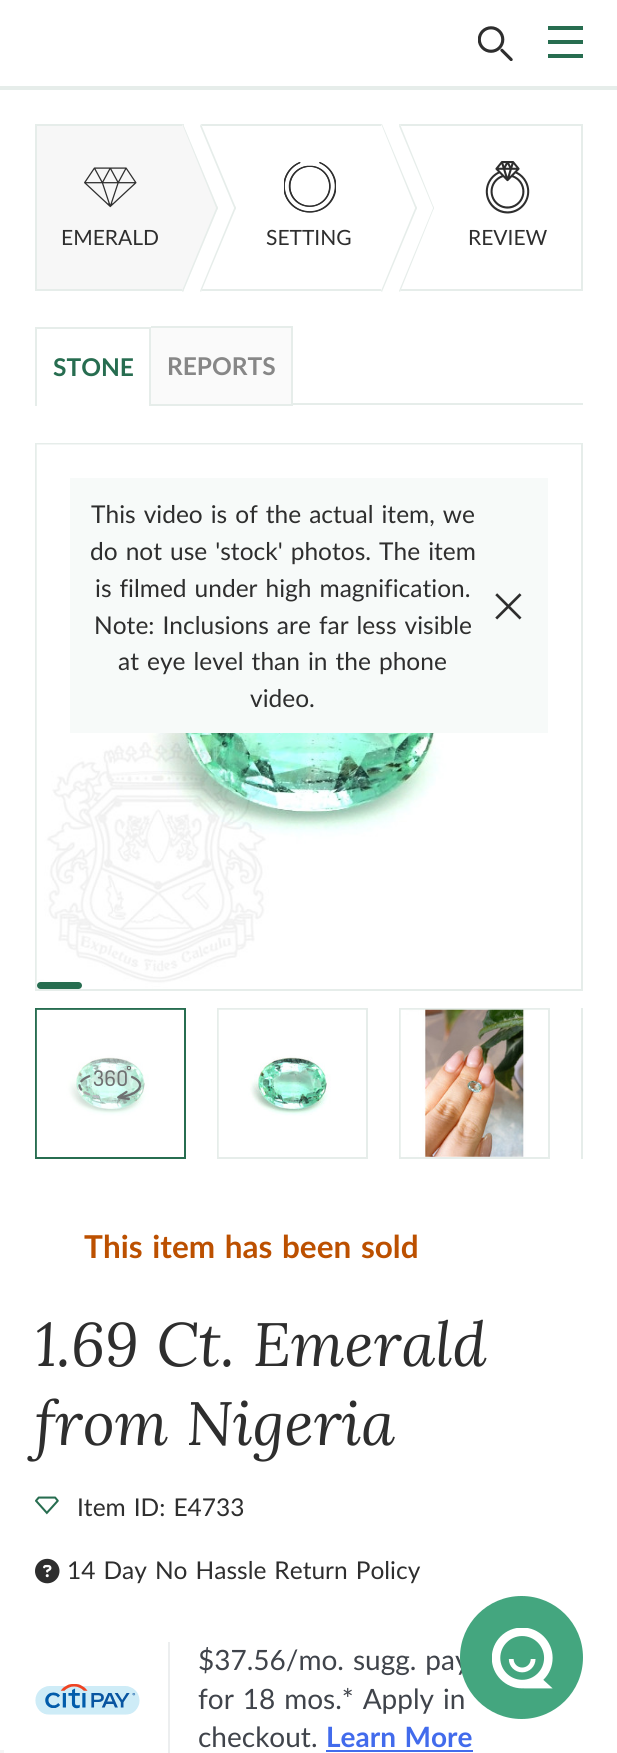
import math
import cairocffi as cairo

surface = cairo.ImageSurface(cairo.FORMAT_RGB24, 617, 1753)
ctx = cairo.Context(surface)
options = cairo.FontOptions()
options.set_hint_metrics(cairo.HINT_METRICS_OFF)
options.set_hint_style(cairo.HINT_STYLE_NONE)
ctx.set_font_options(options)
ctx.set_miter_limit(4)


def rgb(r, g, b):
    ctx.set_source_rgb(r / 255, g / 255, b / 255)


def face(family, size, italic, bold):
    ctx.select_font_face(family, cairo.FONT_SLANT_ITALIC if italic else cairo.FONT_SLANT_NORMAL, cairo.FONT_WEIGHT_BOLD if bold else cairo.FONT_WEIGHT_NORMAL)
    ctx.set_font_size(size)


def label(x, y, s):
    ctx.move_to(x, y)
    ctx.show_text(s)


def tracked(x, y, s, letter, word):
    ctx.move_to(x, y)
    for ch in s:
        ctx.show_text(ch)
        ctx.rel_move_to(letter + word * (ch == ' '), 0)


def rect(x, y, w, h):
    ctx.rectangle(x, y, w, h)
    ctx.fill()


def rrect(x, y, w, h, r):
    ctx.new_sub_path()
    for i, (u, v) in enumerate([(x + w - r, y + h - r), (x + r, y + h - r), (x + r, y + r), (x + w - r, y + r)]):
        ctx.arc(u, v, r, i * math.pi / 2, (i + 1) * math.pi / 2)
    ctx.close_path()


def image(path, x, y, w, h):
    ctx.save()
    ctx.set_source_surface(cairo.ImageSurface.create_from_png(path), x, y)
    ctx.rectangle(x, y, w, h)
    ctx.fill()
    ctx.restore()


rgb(255, 255, 255)
ctx.paint()
image('image0.png', 478, 26, 35, 35)
rgb(39, 109, 80)
rect(548, 26, 35, 4)
rect(548, 40, 35, 4)
rect(548, 54, 35, 4)
rgb(230, 237, 234)
rect(0, 86, 617, 4)
rgb(247, 247, 247)
rect(37, 126, 147, 163)
rgb(230, 237, 234)
rect(35, 124, 149, 2)
rect(35, 289, 149, 2)
rect(35, 124, 2, 167)
image('image1.png', 84, 167, 53, 41)
rect(201, 124, 181, 2)
rect(201, 289, 181, 2)
rgb(255, 255, 255)
ctx.new_path()
ctx.move_to(201, 124)
ctx.line_to(236, 208)
ctx.line_to(201, 292)
ctx.line_to(166, 208)
ctx.close_path()
ctx.fill()
rgb(230, 237, 234)
ctx.new_path()
ctx.move_to(201, 124)
ctx.line_to(236, 208)
ctx.line_to(235, 210)
ctx.line_to(200, 126)
ctx.close_path()
ctx.fill()
ctx.new_path()
ctx.move_to(235, 206)
ctx.line_to(236, 208)
ctx.line_to(201, 292)
ctx.line_to(200, 291)
ctx.close_path()
ctx.fill()
rgb(247, 247, 247)
ctx.new_path()
ctx.move_to(183, 124)
ctx.line_to(218, 208)
ctx.line_to(183, 292)
ctx.line_to(148, 208)
ctx.close_path()
ctx.fill()
face('Lato', 21, 0, 0)
rgb(46, 46, 46)
label(61, 245, 'EMERALD')
rgb(230, 237, 234)
ctx.new_path()
ctx.move_to(183, 124)
ctx.line_to(218, 208)
ctx.line_to(217, 210)
ctx.line_to(183, 126)
ctx.close_path()
ctx.fill()
ctx.new_path()
ctx.move_to(217, 206)
ctx.line_to(218, 208)
ctx.line_to(183, 292)
ctx.line_to(182, 291)
ctx.close_path()
ctx.fill()
image('image2.png', 284, 162, 52, 51)
rect(399, 124, 184, 2)
rect(581, 124, 2, 167)
rect(399, 289, 184, 2)
rgb(255, 255, 255)
ctx.new_path()
ctx.move_to(400, 124)
ctx.line_to(434, 208)
ctx.line_to(400, 292)
ctx.line_to(365, 208)
ctx.close_path()
ctx.fill()
rgb(230, 237, 234)
ctx.new_path()
ctx.move_to(400, 124)
ctx.line_to(434, 208)
ctx.line_to(434, 210)
ctx.line_to(399, 126)
ctx.close_path()
ctx.fill()
ctx.new_path()
ctx.move_to(434, 206)
ctx.line_to(434, 208)
ctx.line_to(400, 292)
ctx.line_to(399, 291)
ctx.close_path()
ctx.fill()
rgb(255, 255, 255)
ctx.new_path()
ctx.move_to(382, 124)
ctx.line_to(417, 208)
ctx.line_to(382, 292)
ctx.line_to(347, 208)
ctx.close_path()
ctx.fill()
rgb(46, 46, 46)
label(266, 245, 'SETTING')
rgb(230, 237, 234)
ctx.new_path()
ctx.move_to(382, 124)
ctx.line_to(417, 208)
ctx.line_to(416, 210)
ctx.line_to(382, 126)
ctx.close_path()
ctx.fill()
ctx.new_path()
ctx.move_to(416, 206)
ctx.line_to(417, 208)
ctx.line_to(382, 292)
ctx.line_to(381, 291)
ctx.close_path()
ctx.fill()
image('image3.png', 485, 161, 45, 53)
rgb(46, 46, 46)
label(468, 245, 'REVIEW')
rgb(230, 237, 234)
rect(35, 327, 116, 2)
rect(149, 327, 2, 79)
rect(35, 327, 2, 79)
face('Lato', 24.5, 0, 1)
rgb(39, 109, 80)
label(53, 376, 'STONE')
rgb(250, 250, 250)
rect(151, 328, 140, 76)
rgb(230, 237, 234)
rect(151, 326, 141, 2)
rect(291, 326, 2, 80)
rect(151, 404, 141, 2)
rgb(135, 135, 135)
label(167, 375, 'REPORTS')
rgb(230, 237, 234)
rect(293, 403, 290, 2)
ctx.rectangle(36, 444, 546, 546)
ctx.stroke()
image('image4.png', 36, 444, 545, 545)
rgb(39, 109, 80)
rrect(37, 982, 45, 7, 3.5)
ctx.fill()
rgb(247, 250, 249)
rect(70, 478, 478, 255)
face('Lato', 24.5, 0, 0)
rgb(46, 46, 46)
tracked(91, 523, 'This video is of the actual item, we', 0, 1.75)
tracked(90, 560, 'do not use \'stock\' photos. The item', 0, 1.75)
tracked(95, 597, 'is filmed under high magnification.', 0, 1.75)
tracked(94, 634, 'Note: Inclusions are far less visible', 0, 1.75)
tracked(118, 670, 'at eye level than in the phone', 0, 1.75)
label(250, 707, 'video.')
image('image5.png', 495, 593, 27, 27)
ctx.rectangle(36, 1009, 149, 149)
rgb(39, 109, 80)
ctx.stroke()
image('image6.png', 36, 1009, 148, 148)
image('image7.png', 78, 1066, 64, 34)
ctx.rectangle(218, 1009, 149, 149)
rgb(230, 237, 234)
ctx.stroke()
image('image8.png', 218, 1009, 148, 148)
ctx.rectangle(400, 1009, 149, 149)
ctx.stroke()
image('image9.png', 400, 1009, 148, 148)
ctx.save()
ctx.rectangle(35, 1008, 548, 177)
ctx.clip()
ctx.rectangle(582, 1009, 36, 149)
ctx.stroke()
ctx.restore()
face('Lato', 31.5, 0, 1)
rgb(188, 80, 0)
tracked(84, 1258, 'This item has been sold', 0, 2)
face('Lora', 61.25, 1, 0)
rgb(46, 46, 46)
tracked(35, 1366, '1.69 Ct. Emerald', 0, 1.75)
tracked(35, 1445, 'from Nigeria', 0, 1.75)
image('image10.png', 35, 1496, 24, 19)
face('Lato', 24.5, 0, 0)
tracked(77, 1516, 'Item ID: E4733', 0, 1.75)
image('image11.png', 35, 1558, 25, 26)
tracked(67, 1579, '14 Day No Hassle Return Policy', 0, 1.75)
image('image12.png', 35, 1684, 105, 31)
rgb(236, 238, 239)
rect(168, 1642, 2, 111)
face('Lato', 28, 0, 0)
rgb(64, 68, 75)
tracked(198, 1670, '$37.56/mo. sugg. pay', 0, 1.75)
tracked(198, 1709, 'for 18 mos.* Apply in', 0, 1.75)
label(198, 1747, 'checkout.')
face('Lato', 28, 0, 1)
rgb(66, 107, 236)
tracked(326, 1747, 'Learn More', 0, 1.75)
rect(326, 1750, 147, 2)
rgb(68, 166, 127)
ctx.new_path()
ctx.arc(521.5, 1657.5, 61.5, 0, 2 * math.pi)
ctx.fill()
image('image13.png', 492, 1628, 61, 61)
rgb(245, 245, 245)
rect(0, 1750, 4, 3)
surface.write_to_png('render.png')
